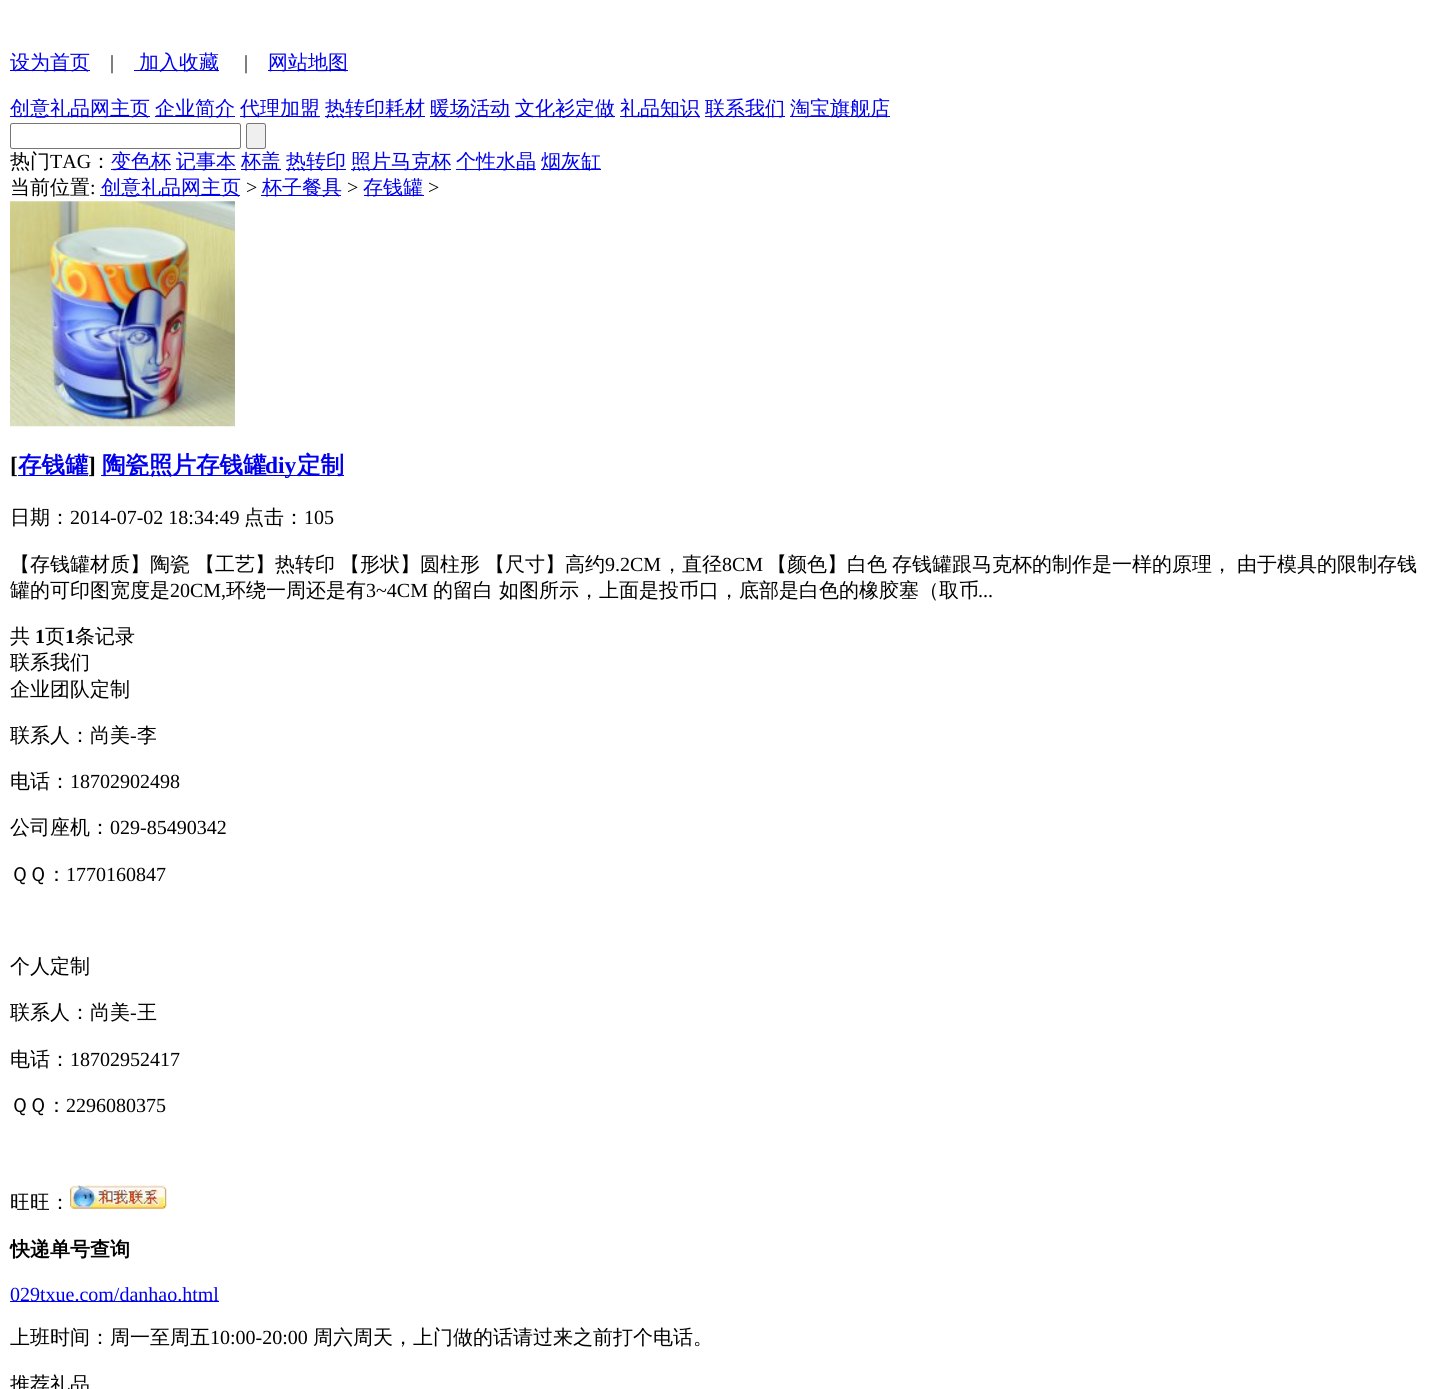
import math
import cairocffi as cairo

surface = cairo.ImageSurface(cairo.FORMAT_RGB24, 1438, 1389)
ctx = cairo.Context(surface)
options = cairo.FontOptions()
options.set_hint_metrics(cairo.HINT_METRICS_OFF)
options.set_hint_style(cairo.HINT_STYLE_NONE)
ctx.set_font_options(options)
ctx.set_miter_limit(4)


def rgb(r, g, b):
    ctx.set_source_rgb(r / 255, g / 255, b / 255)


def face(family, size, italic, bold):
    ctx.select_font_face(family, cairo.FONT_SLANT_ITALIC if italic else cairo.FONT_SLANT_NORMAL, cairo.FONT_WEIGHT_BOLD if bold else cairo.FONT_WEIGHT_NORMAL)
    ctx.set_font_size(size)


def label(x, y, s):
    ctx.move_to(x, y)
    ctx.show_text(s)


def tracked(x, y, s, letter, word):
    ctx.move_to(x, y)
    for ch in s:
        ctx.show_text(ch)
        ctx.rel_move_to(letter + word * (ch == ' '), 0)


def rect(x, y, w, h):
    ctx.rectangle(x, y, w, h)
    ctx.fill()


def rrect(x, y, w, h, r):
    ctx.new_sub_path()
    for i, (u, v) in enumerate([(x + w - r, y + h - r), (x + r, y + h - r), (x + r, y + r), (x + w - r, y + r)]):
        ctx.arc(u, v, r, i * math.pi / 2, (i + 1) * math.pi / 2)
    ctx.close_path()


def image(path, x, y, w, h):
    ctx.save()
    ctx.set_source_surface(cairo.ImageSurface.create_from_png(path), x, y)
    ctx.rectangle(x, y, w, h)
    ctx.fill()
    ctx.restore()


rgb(255, 255, 255)
ctx.paint()
rgb(0, 0, 238)
rect(10, 70, 80, 1)
face('WenQuanYi Zen Hei Medium', 20, 0, 0)
label(10, 69, '设为首页')
face('Liberation Serif', 20, 0, 0)
rgb(0, 0, 0)
label(110, 69, '|')
rgb(0, 0, 238)
rect(134, 70, 85, 1)
face('WenQuanYi Zen Hei Medium', 20, 0, 0)
label(139, 69, '加入收藏')
face('Liberation Serif', 20, 0, 0)
rgb(0, 0, 0)
label(244, 69, '|')
rgb(0, 0, 238)
rect(268, 70, 80, 1)
face('WenQuanYi Zen Hei Medium', 20, 0, 0)
label(268, 69, '网站地图')
rect(10, 116, 140, 1)
label(10, 115, '创意礼品网主页')
rect(155, 116, 80, 1)
label(155, 115, '企业简介')
rect(240, 116, 80, 1)
label(240, 115, '代理加盟')
rect(325, 116, 100, 1)
label(325, 115, '热转印耗材')
rect(430, 116, 80, 1)
label(430, 115, '暖场活动')
rect(515, 116, 100, 1)
label(515, 115, '文化衫定做')
rect(620, 116, 80, 1)
label(620, 115, '礼品知识')
rect(705, 116, 80, 1)
label(705, 115, '联系我们')
rect(790, 116, 100, 1)
label(790, 115, '淘宝旗舰店')
rrect(10.5, 123.5, 230, 25, 2)
rgb(118, 118, 118)
ctx.set_line_width(1)
ctx.stroke()
rgb(239, 239, 239)
rrect(246.5, 123.5, 19, 25, 2)
ctx.fill_preserve()
rgb(118, 118, 118)
ctx.stroke()
rgb(0, 0, 0)
label(10, 168, '热门')
face('Liberation Serif', 20, 0, 0)
label(50, 168, 'TAG')
face('WenQuanYi Zen Hei Medium', 20, 0, 0)
label(91, 168, '：')
rgb(0, 0, 238)
rect(111, 169, 60, 1)
label(111, 168, '变色杯')
rect(176, 169, 60, 1)
label(176, 168, '记事本')
rect(241, 169, 40, 1)
label(241, 168, '杯盖')
rect(286, 169, 60, 1)
label(286, 168, '热转印')
rect(351, 169, 100, 1)
label(351, 168, '照片马克杯')
rect(456, 169, 80, 1)
label(456, 168, '个性水晶')
rect(541, 169, 60, 1)
label(541, 168, '烟灰缸')
rgb(0, 0, 0)
label(10, 194, '当前位置')
face('Liberation Serif', 20, 0, 0)
label(90, 194, ':')
rgb(0, 0, 238)
rect(100, 195, 140, 1)
face('WenQuanYi Zen Hei Medium', 20, 0, 0)
label(101, 194, '创意礼品网主页')
face('Liberation Serif', 20, 0, 0)
rgb(0, 0, 0)
label(246, 194, '>')
rgb(0, 0, 238)
rect(261, 195, 80, 1)
face('WenQuanYi Zen Hei Medium', 20, 0, 0)
label(262, 194, '杯子餐具')
face('Liberation Serif', 20, 0, 0)
rgb(0, 0, 0)
label(347, 194, '>')
rgb(0, 0, 238)
rect(364, 195, 60, 1)
face('WenQuanYi Zen Hei Medium', 20, 0, 0)
label(363, 194, '存钱罐')
face('Liberation Serif', 20, 0, 0)
rgb(0, 0, 0)
label(428, 194, '>')
image('image0.png', 10, 201, 225, 226)
face('Liberation Serif', 23.5, 0, 1)
label(10, 473, '[')
rgb(0, 0, 238)
rect(18, 475, 70, 1)
face('WenQuanYi Zen Hei', 23.5, 0, 1)
label(18, 473, '存钱罐')
face('Liberation Serif', 23.5, 0, 1)
rgb(0, 0, 0)
label(88, 473, ']')
rgb(0, 0, 238)
rect(101, 475, 243, 1)
face('WenQuanYi Zen Hei', 23.5, 0, 1)
label(102, 473, '陶瓷照片存钱罐')
face('Liberation Serif', 23.5, 0, 1)
label(265, 473, 'diy')
face('WenQuanYi Zen Hei', 23.5, 0, 1)
label(297, 473, '定制')
face('WenQuanYi Zen Hei Medium', 20, 0, 0)
rgb(0, 0, 0)
label(10, 524, '日期：')
face('Liberation Serif', 20, 0, 0)
label(70, 524, '2014-07-02 18:34:49')
face('WenQuanYi Zen Hei Medium', 20, 0, 0)
label(244, 524, '点击：')
face('Liberation Serif', 20, 0, 0)
label(304, 524, '105')
face('WenQuanYi Zen Hei Medium', 20, 0, 0)
tracked(10, 571, '【存钱罐材质】陶瓷 【工艺】热转印 【形状】圆柱形 【尺寸】高约', 0, -1)
face('Liberation Serif', 20, 0, 0)
label(605, 571, '9.2CM')
face('WenQuanYi Zen Hei Medium', 20, 0, 0)
label(662, 571, '，直径')
face('Liberation Serif', 20, 0, 0)
label(722, 571, '8CM')
face('WenQuanYi Zen Hei Medium', 20, 0, 0)
tracked(767, 571, '【颜色】白色 存钱罐跟马克杯的制作是一样的原理， 由于模具的限制存钱', 0, -1)
label(10, 597, '罐的可印图宽度是')
face('Liberation Serif', 20, 0, 0)
label(170, 597, '20CM,')
face('WenQuanYi Zen Hei Medium', 20, 0, 0)
label(226, 597, '环绕一周还是有')
face('Liberation Serif', 20, 0, 0)
label(366, 597, '3~4CM')
face('WenQuanYi Zen Hei Medium', 20, 0, 0)
label(433, 597, '的留白 如图所示，上面是投币口，底部是白色的橡胶塞（取币')
face('Liberation Serif', 20, 0, 0)
label(978, 597, '...')
face('WenQuanYi Zen Hei Medium', 20, 0, 0)
label(10, 643, '共')
face('Liberation Serif', 20, 0, 1)
label(35, 643, '1')
face('WenQuanYi Zen Hei Medium', 20, 0, 0)
label(45, 643, '页')
face('Liberation Serif', 20, 0, 1)
label(65, 643, '1')
face('WenQuanYi Zen Hei Medium', 20, 0, 0)
label(75, 643, '条记录')
label(10, 669, '联系我们')
label(10, 696, '企业团队定制')
label(10, 742, '联系人：尚美')
face('Liberation Serif', 20, 0, 0)
label(130, 742, '-')
face('WenQuanYi Zen Hei Medium', 20, 0, 0)
label(137, 742, '李')
label(10, 788, '电话：')
face('Liberation Serif', 20, 0, 0)
label(70, 788, '18702902498')
face('WenQuanYi Zen Hei Medium', 20, 0, 0)
label(10, 834, '公司座机：')
face('Liberation Serif', 20, 0, 0)
label(110, 834, '029-85490342')
face('WenQuanYi Zen Hei Medium', 20, 0, 0)
label(10, 881, 'ＱＱ：')
face('Liberation Serif', 20, 0, 0)
label(66, 881, '1770160847')
face('WenQuanYi Zen Hei Medium', 20, 0, 0)
label(10, 973, '个人定制')
label(10, 1019, '联系人：尚美')
face('Liberation Serif', 20, 0, 0)
label(130, 1019, '-')
face('WenQuanYi Zen Hei Medium', 20, 0, 0)
label(137, 1019, '王')
label(10, 1066, '电话：')
face('Liberation Serif', 20, 0, 0)
label(70, 1066, '18702952417')
face('WenQuanYi Zen Hei Medium', 20, 0, 0)
label(10, 1112, 'ＱＱ：')
face('Liberation Serif', 20, 0, 0)
label(66, 1112, '2296080375')
face('WenQuanYi Zen Hei Medium', 20, 0, 0)
label(10, 1209, '旺旺：')
image('image1.png', 70, 1185, 97, 24)
face('WenQuanYi Zen Hei', 20, 0, 1)
label(10, 1256, '快递单号查询')
rgb(0, 0, 238)
rect(10, 1301, 209, 1)
face('Liberation Serif', 20, 0, 0)
label(10, 1301, '029txue.com/danhao.html')
face('WenQuanYi Zen Hei Medium', 20, 0, 0)
rgb(0, 0, 0)
label(10, 1344, '上班时间：周一至周五')
face('Liberation Serif', 20, 0, 0)
label(210, 1344, '10:00-20:00')
face('WenQuanYi Zen Hei Medium', 20, 0, 0)
label(313, 1344, '周六周天，上门做的话请过来之前打个电话。')
label(10, 1391, '推荐礼品')
surface.write_to_png('render.png')
